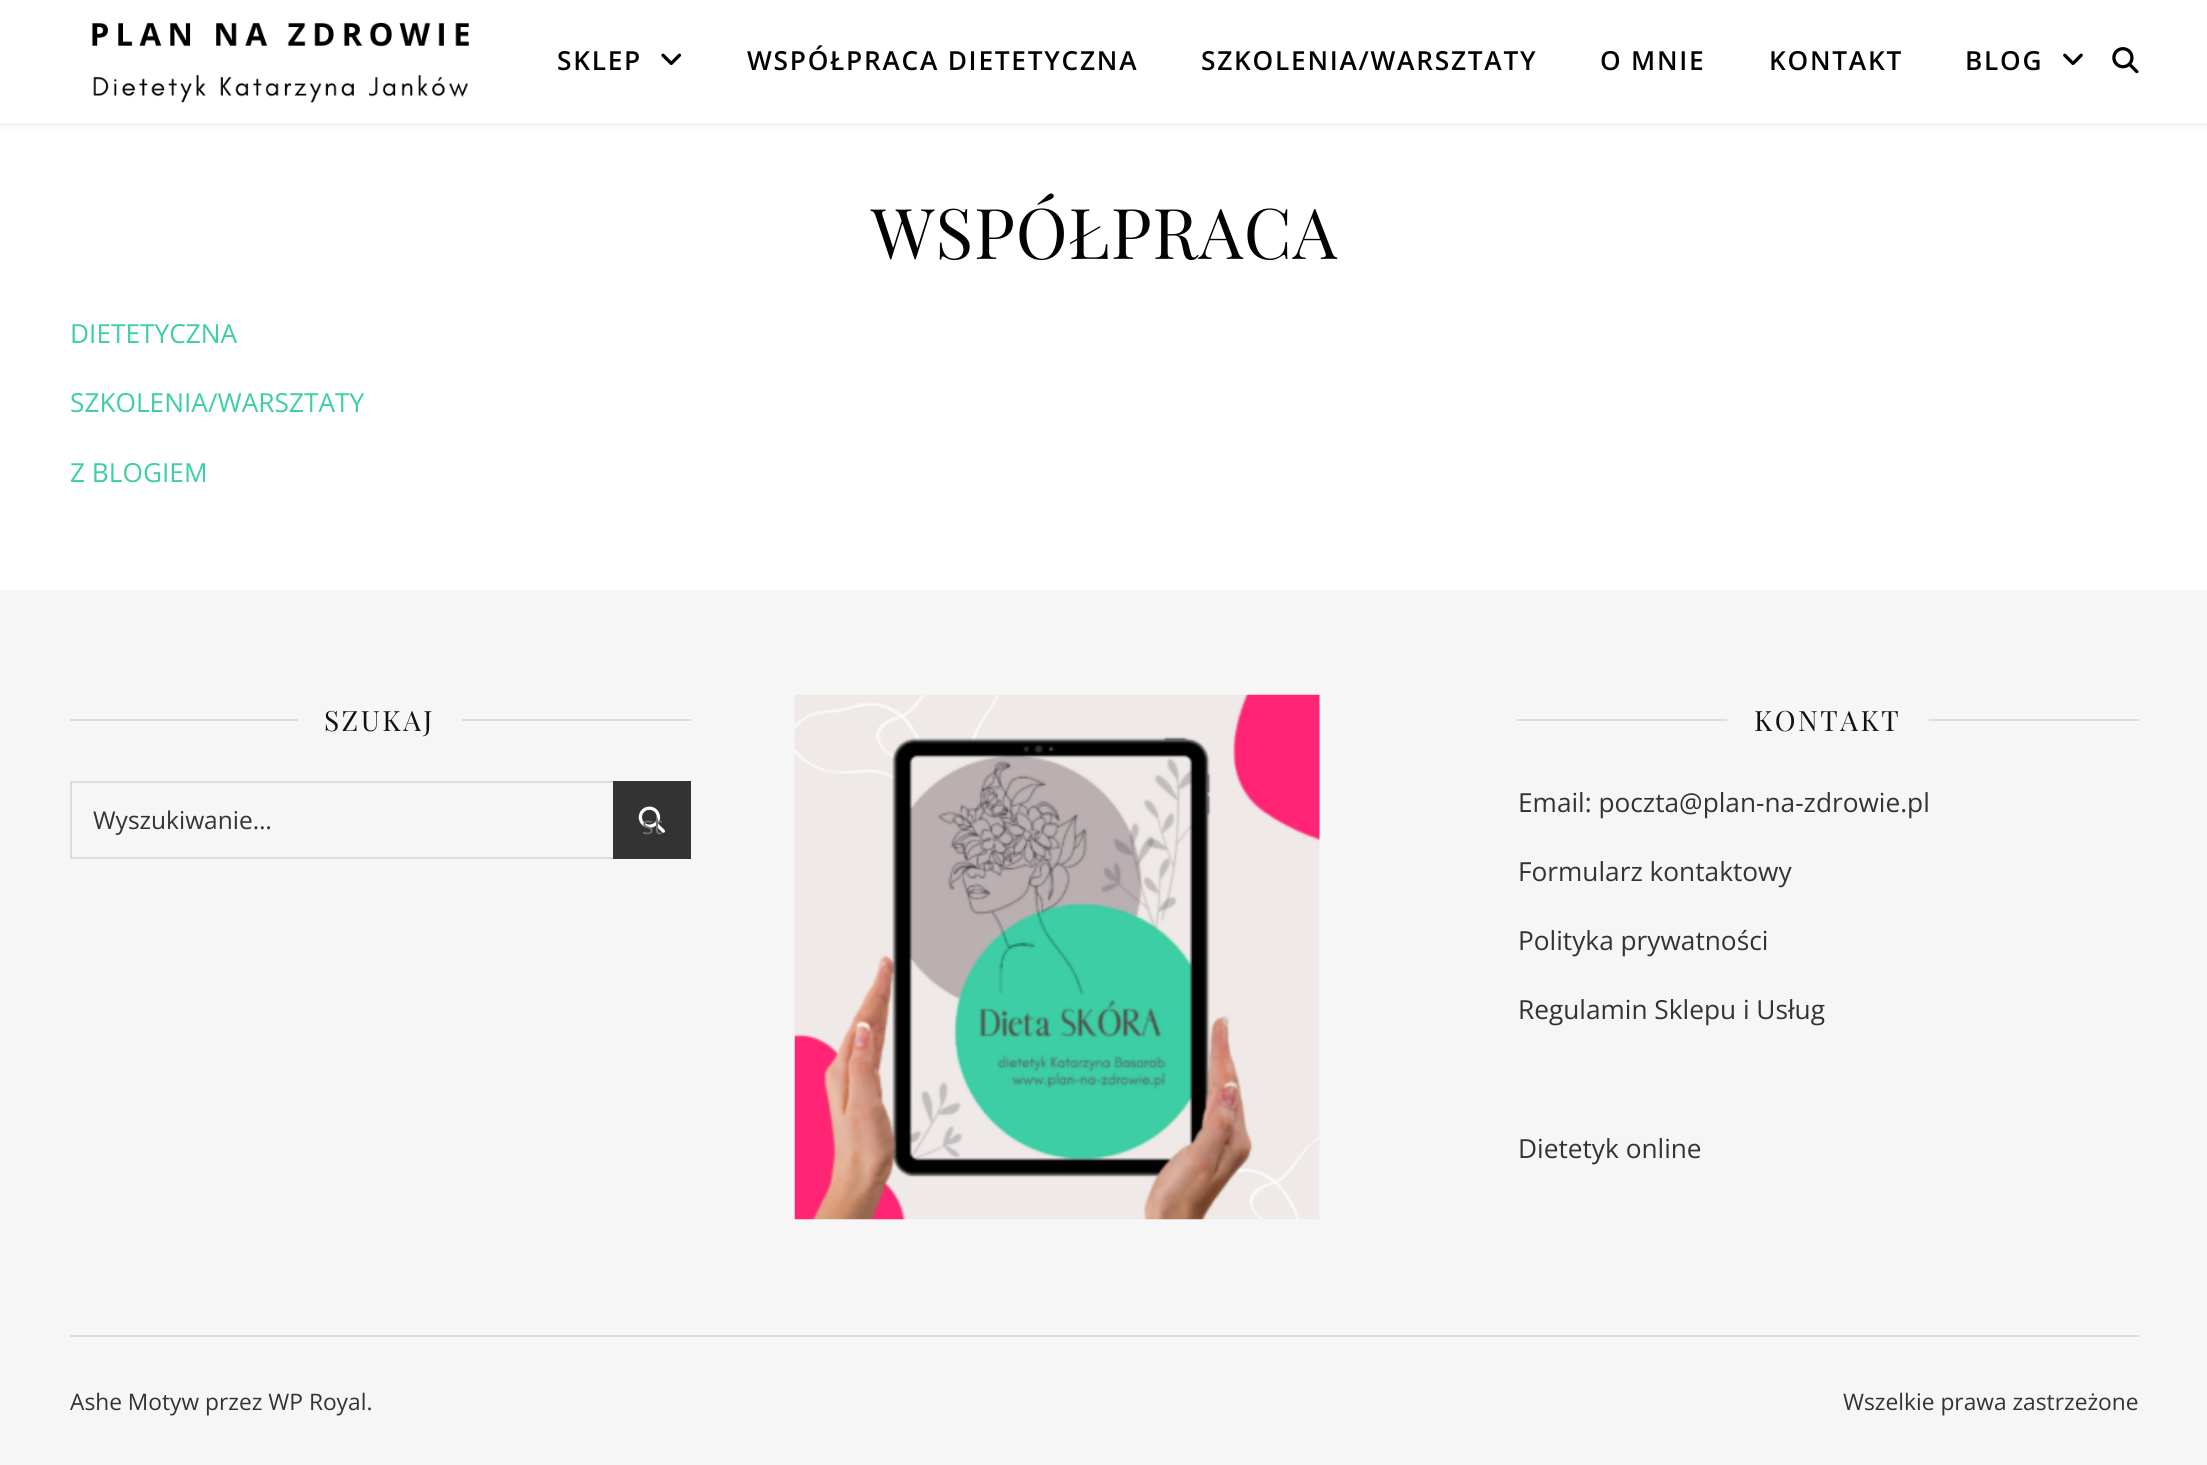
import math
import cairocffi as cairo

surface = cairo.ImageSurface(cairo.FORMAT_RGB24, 2207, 1465)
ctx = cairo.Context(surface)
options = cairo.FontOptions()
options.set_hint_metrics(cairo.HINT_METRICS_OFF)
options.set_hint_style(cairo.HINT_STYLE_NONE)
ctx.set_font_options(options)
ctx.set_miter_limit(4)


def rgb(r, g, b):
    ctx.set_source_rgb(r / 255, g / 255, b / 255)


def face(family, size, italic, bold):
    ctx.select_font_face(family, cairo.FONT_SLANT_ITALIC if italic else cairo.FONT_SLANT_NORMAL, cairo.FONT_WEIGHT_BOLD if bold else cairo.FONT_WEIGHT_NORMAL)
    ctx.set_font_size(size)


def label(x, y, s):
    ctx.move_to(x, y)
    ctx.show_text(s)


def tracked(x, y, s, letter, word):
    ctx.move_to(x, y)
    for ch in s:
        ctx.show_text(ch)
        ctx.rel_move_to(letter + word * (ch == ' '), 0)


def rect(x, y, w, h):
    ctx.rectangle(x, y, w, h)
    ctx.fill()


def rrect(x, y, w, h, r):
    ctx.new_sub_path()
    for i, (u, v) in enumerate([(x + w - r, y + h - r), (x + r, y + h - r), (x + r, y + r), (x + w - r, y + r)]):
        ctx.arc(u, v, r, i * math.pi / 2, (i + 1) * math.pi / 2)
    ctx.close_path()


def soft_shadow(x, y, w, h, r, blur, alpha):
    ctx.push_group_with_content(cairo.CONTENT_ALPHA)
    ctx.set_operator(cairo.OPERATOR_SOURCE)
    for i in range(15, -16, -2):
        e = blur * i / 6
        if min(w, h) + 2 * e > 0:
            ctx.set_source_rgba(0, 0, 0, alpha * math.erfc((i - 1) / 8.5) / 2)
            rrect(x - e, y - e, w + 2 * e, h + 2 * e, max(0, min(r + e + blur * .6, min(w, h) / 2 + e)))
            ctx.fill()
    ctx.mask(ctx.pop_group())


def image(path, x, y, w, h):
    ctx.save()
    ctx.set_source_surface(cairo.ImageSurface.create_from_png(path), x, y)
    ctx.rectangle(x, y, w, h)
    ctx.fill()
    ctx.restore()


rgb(255, 255, 255)
ctx.paint()
rgb(0, 0, 0)
soft_shadow(0, 0, 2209, 124, 0, 4.5, 0.1)
rgb(255, 255, 255)
rect(0, 0, 2207, 123)
image('image0.png', 91, 22, 378, 81)
face('Open Sans SemiBold', 26.25, 0, 0)
rgb(3, 3, 3)
tracked(557, 70, 'SKLEP', 1.75, 0)
image('image1.png', 661, 53, 21, 13)
tracked(747, 70, 'WSPÓŁPRACA DIETETYCZNA', 1.75, 0)
tracked(1201, 70, 'SZKOLENIA/WARSZTATY', 1.75, 0)
tracked(1600, 70, 'O MNIE', 1.75, 0)
tracked(1769, 70, 'KONTAKT', 1.75, 0)
tracked(1965, 70, 'BLOG', 1.75, 0)
image('image2.png', 2063, 53, 20, 12)
image('image3.png', 2112, 47, 27, 27)
face('Playfair Display', 70, 0, 0)
tracked(871, 259, 'WSPÓŁPRACA', 0.9, 0)
face('Open Sans', 26.25, 0, 0)
rgb(61, 206, 165)
label(70, 343, 'DIETETYCZNA')
label(70, 412, 'SZKOLENIA/WARSZTATY')
label(70, 482, 'Z BLOGIEM')
rgb(246, 246, 246)
rect(0, 590, 2207, 875)
rgb(224, 219, 219)
rect(70, 1335, 2069, 2)
rect(70, 719, 228, 2)
face('Playfair Display', 28, 0, 0)
rgb(17, 17, 17)
tracked(324, 731, 'SZUKAJ', 2.5, 0)
rgb(224, 219, 219)
rect(462, 719, 229, 2)
ctx.rectangle(71, 782, 619, 76)
ctx.stroke()
face('Open Sans', 24.5, 0, 0)
rgb(51, 51, 51)
label(93, 829, 'Wyszukiwanie…')
rect(613, 781, 78, 78)
image('image4.png', 638, 806, 27, 27)
rgb(116, 116, 116)
label(642, 834, 'st')
image('image5.png', 794, 694, 526, 526)
rgb(224, 219, 219)
rect(1517, 719, 210, 2)
face('Playfair Display', 28, 0, 0)
rgb(17, 17, 17)
tracked(1754, 731, 'KONTAKT', 2.5, 0)
rgb(224, 219, 219)
rect(1929, 719, 210, 2)
face('Open Sans', 26.25, 0, 0)
rgb(51, 51, 51)
label(1518, 812, 'Email: poczta@plan-na-zdrowie.pl')
label(1518, 881, 'Formularz kontaktowy')
label(1518, 950, 'Polityka prywatności')
label(1518, 1019, 'Regulamin Sklepu i Usług')
label(1518, 1158, 'Dietetyk online')
face('Open Sans', 22.75, 0, 0)
label(70, 1410, 'Ashe Motyw przez WP Royal.')
label(1843, 1410, 'Wszelkie prawa zastrzeżone')
surface.write_to_png('render.png')
